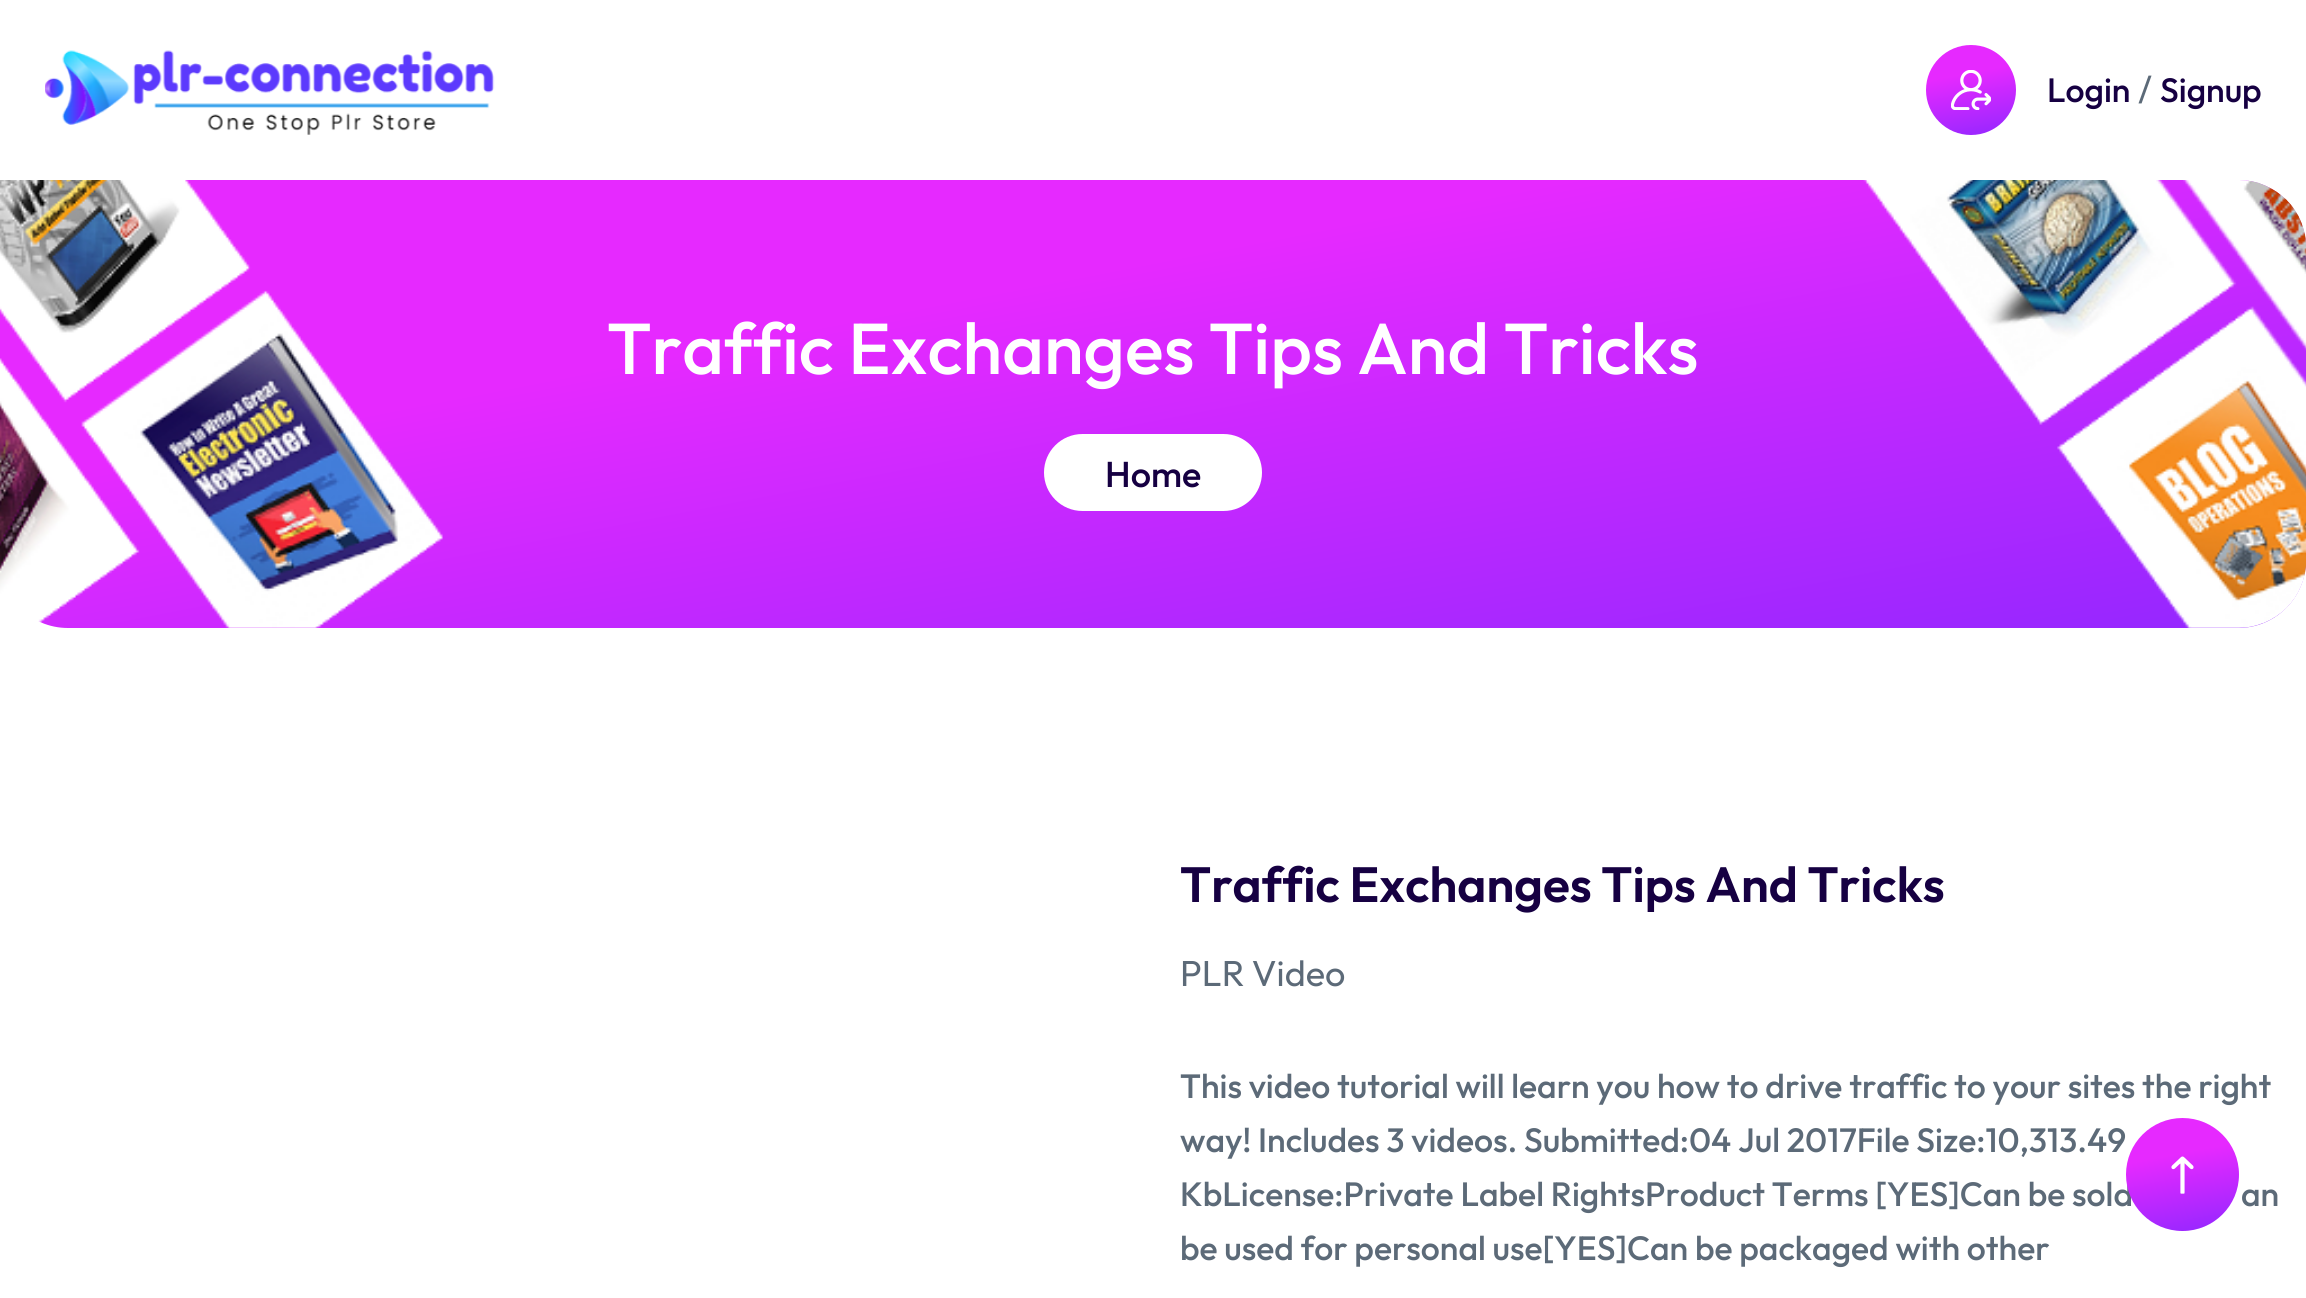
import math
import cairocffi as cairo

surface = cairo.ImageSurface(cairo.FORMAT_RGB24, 2306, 1298)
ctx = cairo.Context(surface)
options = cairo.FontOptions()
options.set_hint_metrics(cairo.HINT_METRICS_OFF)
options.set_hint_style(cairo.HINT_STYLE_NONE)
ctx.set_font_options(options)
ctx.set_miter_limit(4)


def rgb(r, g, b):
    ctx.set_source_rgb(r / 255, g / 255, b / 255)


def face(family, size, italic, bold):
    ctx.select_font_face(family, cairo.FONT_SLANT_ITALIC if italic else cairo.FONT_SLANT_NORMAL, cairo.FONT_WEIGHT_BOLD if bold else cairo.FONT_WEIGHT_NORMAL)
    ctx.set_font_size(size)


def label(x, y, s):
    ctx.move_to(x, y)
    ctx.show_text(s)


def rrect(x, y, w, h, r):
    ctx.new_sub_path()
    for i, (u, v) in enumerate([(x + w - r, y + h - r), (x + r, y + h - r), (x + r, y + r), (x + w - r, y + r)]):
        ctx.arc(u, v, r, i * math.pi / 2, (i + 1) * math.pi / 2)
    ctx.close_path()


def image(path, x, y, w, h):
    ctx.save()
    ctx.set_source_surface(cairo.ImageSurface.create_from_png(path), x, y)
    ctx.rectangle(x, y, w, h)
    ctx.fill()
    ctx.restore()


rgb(255, 255, 255)
ctx.paint()
image('image0.png', 45, 50, 450, 85)
gradient = cairo.LinearGradient(1961, 38, 1981, 142)
gradient.add_color_stop_rgba(0.34, 0.902, 0.161, 1, 1)
gradient.add_color_stop_rgba(1, 0.576, 0.153, 1, 1)
ctx.set_source(gradient)
ctx.arc(1971, 90, 45, 0, 2 * math.pi)
ctx.fill()
image('image1.png', 1951, 70, 40, 40)
face('Outfit Medium', 33.75, 0, 0)
rgb(22, 0, 66)
label(2047, 102, 'Login')
face('Outfit', 36, 0, 0)
rgb(92, 106, 120)
label(2138, 102, '/')
face('Outfit Medium', 33.75, 0, 0)
rgb(22, 0, 66)
label(2160, 102, 'Signup')
gradient = cairo.LinearGradient(1069, -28, 1237, 836)
gradient.add_color_stop_rgba(0.34, 0.902, 0.161, 1, 1)
gradient.add_color_stop_rgba(1, 0.576, 0.153, 1, 1)
ctx.set_source(gradient)
rrect(0, 180, 2306, 448, 68)
ctx.fill()
image('image2.png', 0, 180, 2306, 448)
face('Outfit Medium', 72, 0, 0)
rgb(255, 255, 255)
label(607, 374, 'Traffic Exchanges Tips And Tricks')
rrect(1044, 434, 218, 77, 38.5)
ctx.fill()
face('Outfit Medium', 36, 0, 0)
rgb(22, 0, 66)
label(1105, 487, 'Home')
face('Outfit SemiBold', 49.5, 0, 0)
label(1180, 902, 'Traffic Exchanges Tips And Tricks')
face('Outfit', 36, 0, 0)
rgb(92, 106, 120)
label(1180, 986, 'PLR Video')
face('Outfit Medium', 33.75, 0, 0)
label(1180, 1098, 'This video tutorial will learn you how to drive traffic to your sites the right')
label(1180, 1152, 'way! Includes 3 videos. Submitted:04 Jul 2017File Size:10,313.49')
label(1180, 1206, 'KbLicense:Private Label RightsProduct Terms [YES]Can be sold')
label(2241, 1206, 'an')
label(1180, 1260, 'be used for personal use[YES]Can be packaged with other')
gradient = cairo.LinearGradient(2170, 1110, 2195, 1239)
gradient.add_color_stop_rgba(0.34, 0.902, 0.161, 1, 1)
gradient.add_color_stop_rgba(1, 0.576, 0.153, 1, 1)
ctx.set_source(gradient)
ctx.new_path()
ctx.arc(2182.5, 1174.5, 56.5, 0, 2 * math.pi)
ctx.fill()
image('image3.png', 2171, 1156, 23, 38)
surface.write_to_png('render.png')
